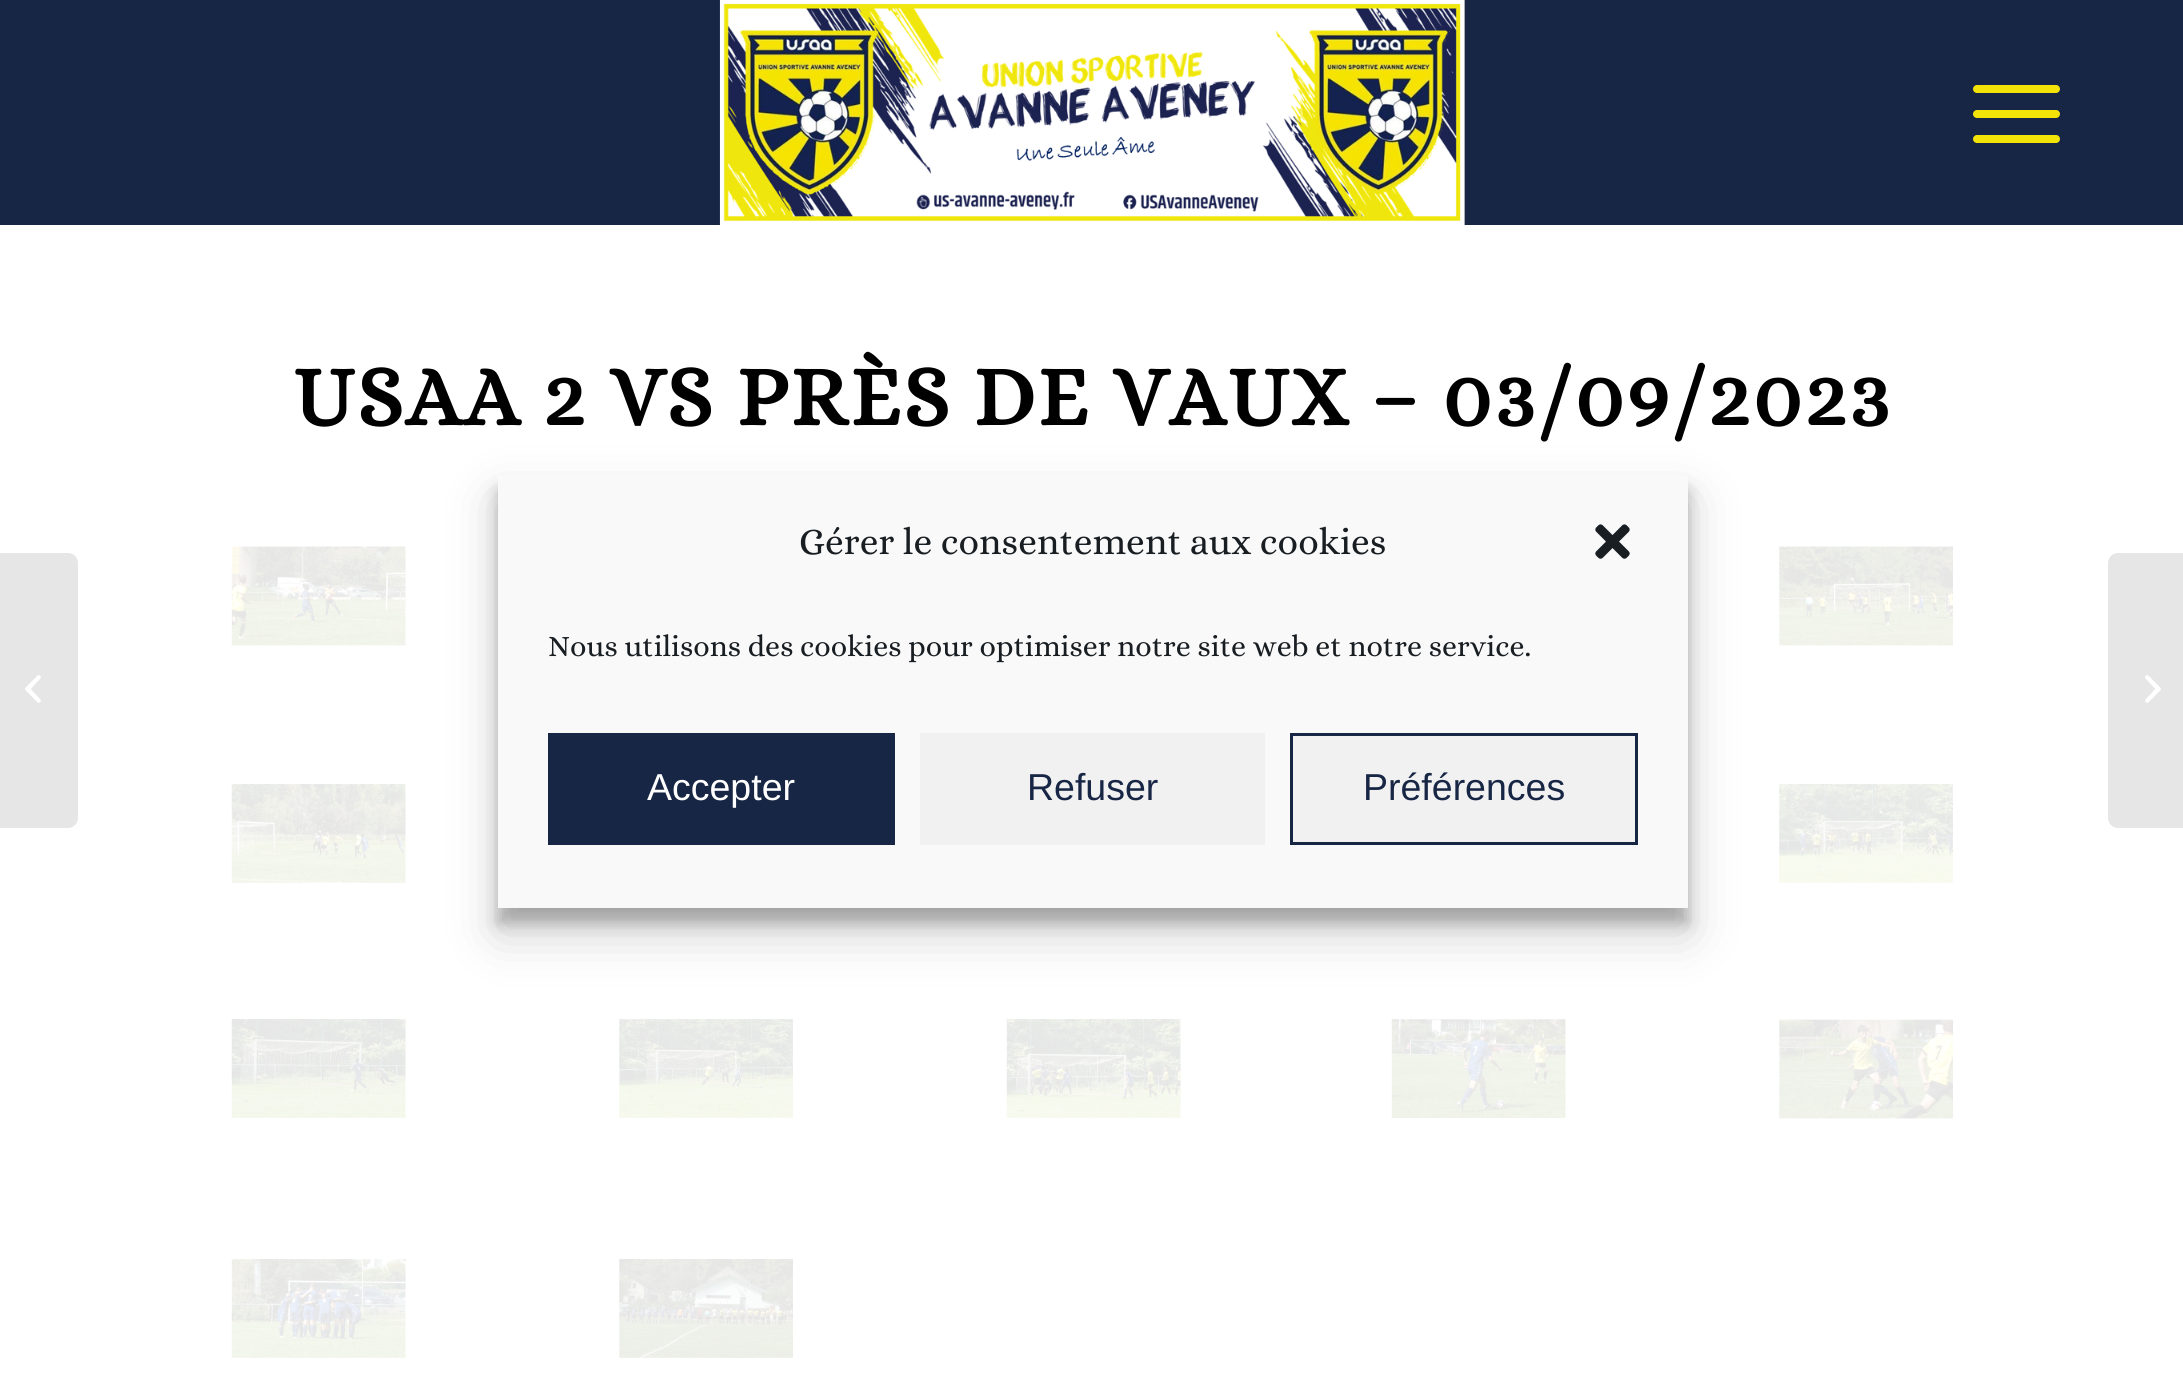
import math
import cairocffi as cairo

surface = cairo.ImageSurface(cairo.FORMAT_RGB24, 2183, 1379)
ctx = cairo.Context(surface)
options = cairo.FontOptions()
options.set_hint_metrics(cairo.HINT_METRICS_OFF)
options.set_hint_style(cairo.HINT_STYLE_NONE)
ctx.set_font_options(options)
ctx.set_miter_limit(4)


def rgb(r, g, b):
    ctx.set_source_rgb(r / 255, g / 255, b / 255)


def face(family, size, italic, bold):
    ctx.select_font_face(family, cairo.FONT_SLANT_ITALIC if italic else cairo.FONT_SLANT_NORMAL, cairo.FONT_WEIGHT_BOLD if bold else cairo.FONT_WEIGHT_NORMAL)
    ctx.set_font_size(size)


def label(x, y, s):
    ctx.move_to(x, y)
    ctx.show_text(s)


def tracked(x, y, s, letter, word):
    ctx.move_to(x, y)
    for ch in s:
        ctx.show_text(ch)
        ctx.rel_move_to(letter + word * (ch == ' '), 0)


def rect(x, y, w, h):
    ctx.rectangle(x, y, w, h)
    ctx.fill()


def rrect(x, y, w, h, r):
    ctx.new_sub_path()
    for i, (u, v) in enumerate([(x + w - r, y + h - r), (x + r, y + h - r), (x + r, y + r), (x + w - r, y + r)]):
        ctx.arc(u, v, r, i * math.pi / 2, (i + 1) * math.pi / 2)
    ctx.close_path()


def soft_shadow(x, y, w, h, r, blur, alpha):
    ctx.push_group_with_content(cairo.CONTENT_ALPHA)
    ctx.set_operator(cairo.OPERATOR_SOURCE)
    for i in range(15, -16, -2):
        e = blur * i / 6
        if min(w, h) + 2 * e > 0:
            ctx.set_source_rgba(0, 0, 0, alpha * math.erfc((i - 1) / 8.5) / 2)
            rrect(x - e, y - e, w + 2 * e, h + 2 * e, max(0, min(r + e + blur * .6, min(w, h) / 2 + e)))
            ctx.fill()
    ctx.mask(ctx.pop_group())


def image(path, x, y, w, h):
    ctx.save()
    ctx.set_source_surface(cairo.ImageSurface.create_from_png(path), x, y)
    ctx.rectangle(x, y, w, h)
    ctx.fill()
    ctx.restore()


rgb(255, 255, 255)
ctx.paint()
rgb(24, 38, 69)
rect(0, 0, 2183, 225)
image('image0.png', 719, 0, 746, 225)
rgb(243, 227, 9)
rrect(1973, 110, 87, 8, 4)
ctx.fill()
rrect(1973, 85, 87, 8, 4)
ctx.fill()
rrect(1973, 135, 87, 8, 4)
ctx.fill()
face('Alice', 85, 0, 1)
rgb(0, 0, 0)
tracked(293, 425, 'USAA 2 VS PRÈS DE VAUX – 03/09/2023', 2.5, 0)
image('image1.png', 231, 546, 175, 100)
image('image2.png', 1779, 546, 174, 100)
image('image3.png', 231, 784, 175, 99)
image('image4.png', 1779, 784, 174, 99)
image('image5.png', 231, 1019, 175, 99)
image('image6.png', 619, 1019, 174, 99)
image('image7.png', 1006, 1019, 175, 99)
image('image8.png', 1391, 1019, 175, 99)
image('image9.png', 1779, 1019, 174, 100)
image('image10.png', 231, 1259, 175, 99)
image('image11.png', 619, 1259, 174, 99)
rgb(230, 230, 230)
ctx.new_path()
ctx.move_to(0, 553)
ctx.line_to(68, 553)
ctx.curve_to(73.5, 553, 78, 557.5, 78, 563)
ctx.line_to(78, 818)
ctx.curve_to(78, 823.5, 73.5, 828, 68, 828)
ctx.line_to(0, 828)
ctx.close_path()
ctx.fill()
image('image12.png', 25, 675, 16, 28)
ctx.new_path()
ctx.move_to(2118, 553)
ctx.line_to(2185, 553)
ctx.line_to(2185, 828)
ctx.line_to(2118, 828)
ctx.curve_to(2112.5, 828, 2108, 823.5, 2108, 818)
ctx.line_to(2108, 563)
ctx.curve_to(2108, 557.5, 2112.5, 553, 2118, 553)
ctx.close_path()
ctx.fill()
image('image13.png', 2145, 675, 16, 28)
rgb(0, 0, 0)
soft_shadow(498, 490, 1190, 433, 0, 7.5, 0.23)
soft_shadow(498, 500, 1190, 433, 0, 25, 0.19)
rgb(249, 249, 249)
rect(498, 475, 1190, 433)
face('Alice', 37.5, 0, 0)
rgb(25, 30, 35)
label(799, 554, 'Gérer le consentement aux cookies')
image('image14.png', 1595, 524, 35, 35)
face('Alice', 30, 0, 0)
label(548, 656, 'Nous utilisons des cookies pour optimiser notre site web et notre service.')
rgb(24, 38, 69)
rect(548, 733, 347, 112)
face('Liberation Sans', 37.5, 0, 0)
rgb(255, 255, 255)
label(647, 800, 'Accepter')
rgb(241, 241, 241)
rect(920, 733, 345, 112)
rgb(24, 38, 69)
label(1027, 800, 'Refuser')
rgb(241, 241, 241)
ctx.rectangle(1291.5, 734.5, 345, 109)
ctx.fill_preserve()
rgb(24, 38, 69)
ctx.set_line_width(3)
ctx.stroke()
label(1363, 800, 'Préférences')
surface.write_to_png('render.png')
